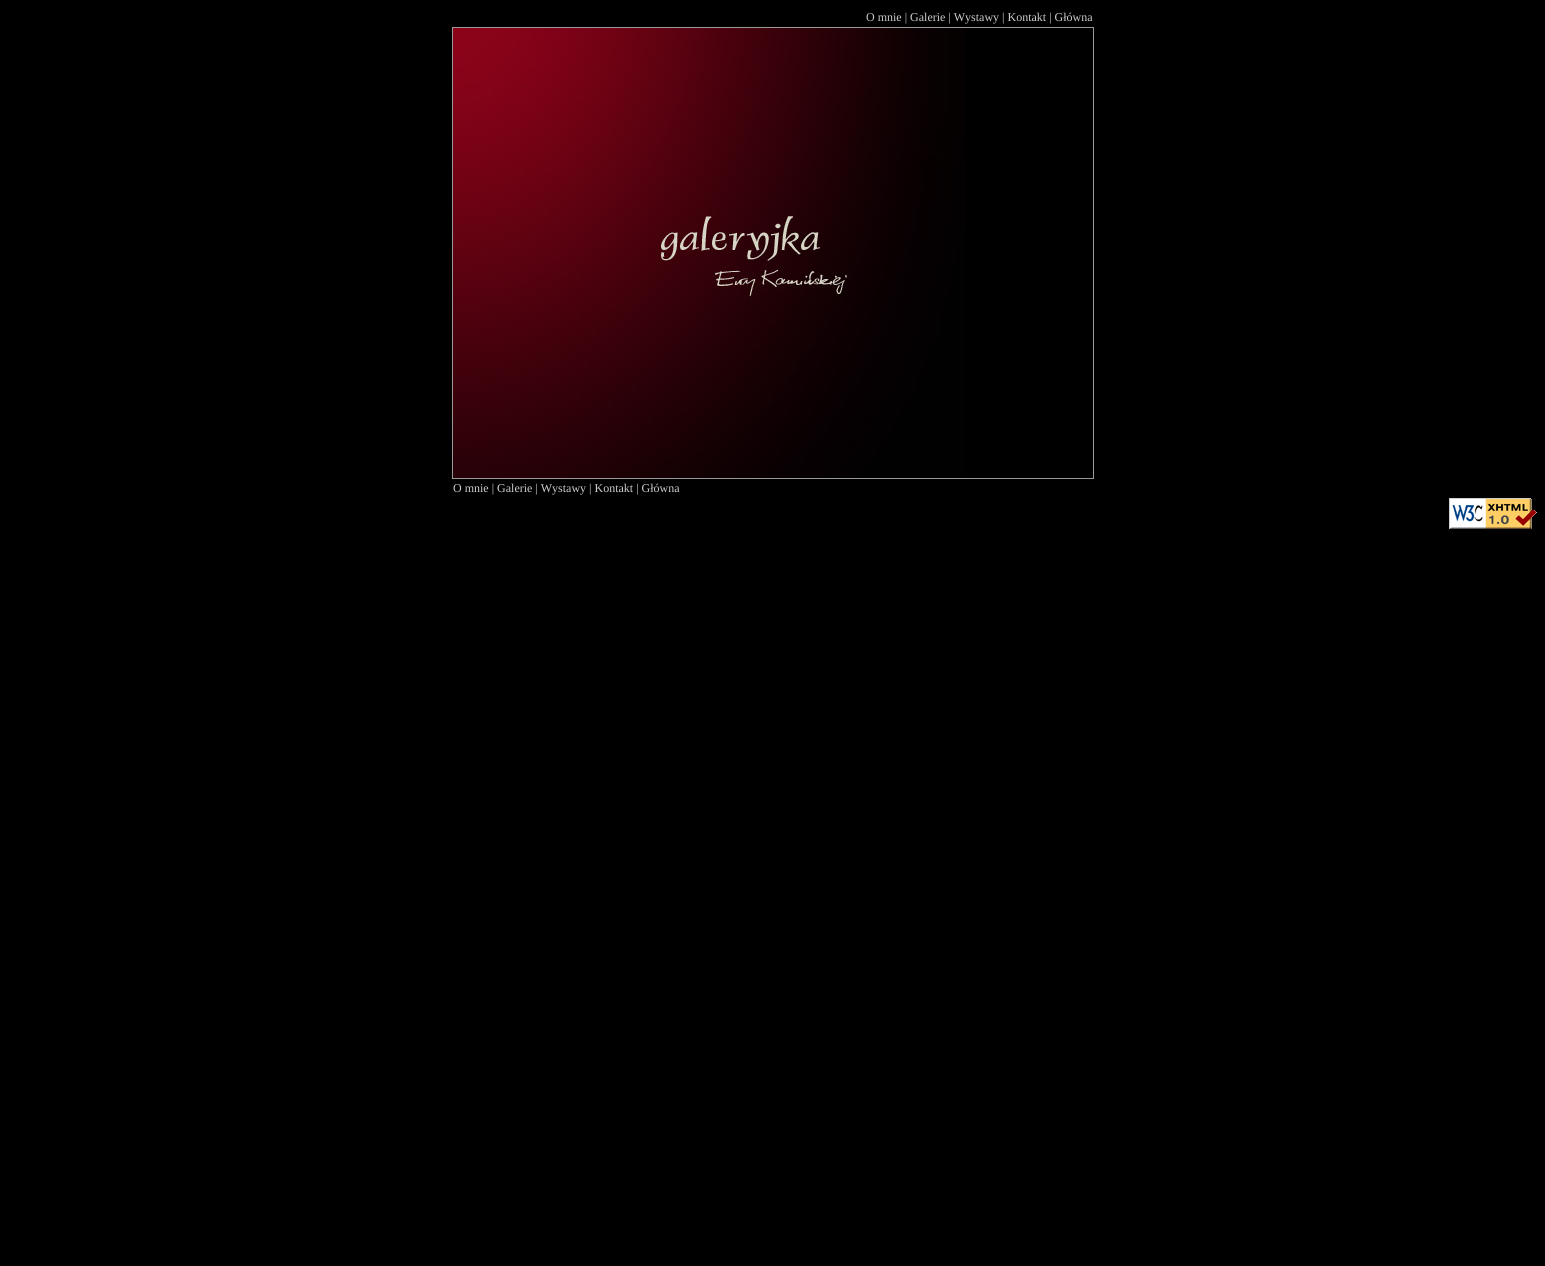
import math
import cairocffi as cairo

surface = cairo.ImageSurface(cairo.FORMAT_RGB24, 1545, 1266)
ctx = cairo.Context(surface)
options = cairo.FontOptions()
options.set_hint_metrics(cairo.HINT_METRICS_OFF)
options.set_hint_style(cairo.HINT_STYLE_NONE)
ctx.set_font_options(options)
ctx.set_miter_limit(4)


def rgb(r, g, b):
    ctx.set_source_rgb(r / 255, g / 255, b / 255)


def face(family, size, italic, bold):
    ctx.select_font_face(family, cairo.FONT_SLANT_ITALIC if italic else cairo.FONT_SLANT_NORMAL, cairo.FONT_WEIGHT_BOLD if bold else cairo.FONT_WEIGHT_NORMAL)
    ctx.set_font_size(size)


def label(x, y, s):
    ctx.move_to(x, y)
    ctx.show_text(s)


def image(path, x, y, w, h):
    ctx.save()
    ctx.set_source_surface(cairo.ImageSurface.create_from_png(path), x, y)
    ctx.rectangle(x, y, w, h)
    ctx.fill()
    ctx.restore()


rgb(0, 0, 0)
ctx.paint()
face('Liberation Serif', 12, 0, 0)
rgb(204, 204, 204)
label(866, 21, 'O mnie | Galerie | Wystawy | Kontakt | Główna')
image('image0.png', 453, 28, 512, 450)
ctx.rectangle(452.5, 27.5, 641, 451)
rgb(153, 153, 153)
ctx.set_line_width(1)
ctx.stroke()
rgb(204, 204, 204)
label(453, 492, 'O mnie | Galerie | Wystawy | Kontakt | Główna')
image('image1.png', 1449, 498, 88, 31)
surface.write_to_png('render.png')
